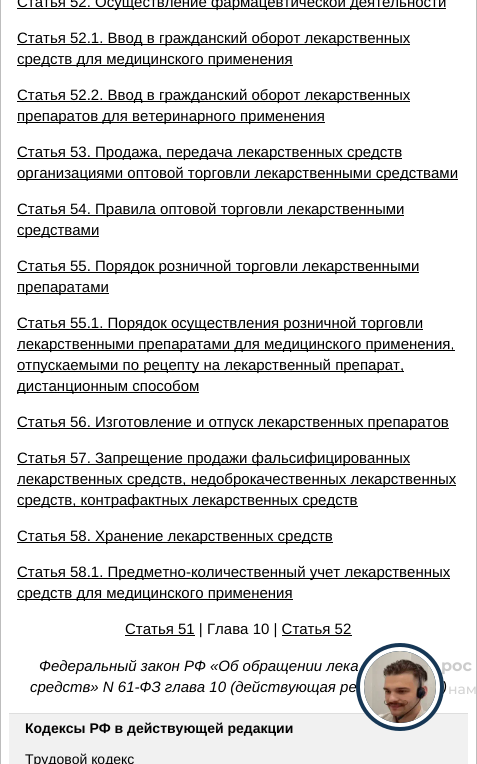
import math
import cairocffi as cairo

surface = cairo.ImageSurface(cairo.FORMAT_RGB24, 477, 764)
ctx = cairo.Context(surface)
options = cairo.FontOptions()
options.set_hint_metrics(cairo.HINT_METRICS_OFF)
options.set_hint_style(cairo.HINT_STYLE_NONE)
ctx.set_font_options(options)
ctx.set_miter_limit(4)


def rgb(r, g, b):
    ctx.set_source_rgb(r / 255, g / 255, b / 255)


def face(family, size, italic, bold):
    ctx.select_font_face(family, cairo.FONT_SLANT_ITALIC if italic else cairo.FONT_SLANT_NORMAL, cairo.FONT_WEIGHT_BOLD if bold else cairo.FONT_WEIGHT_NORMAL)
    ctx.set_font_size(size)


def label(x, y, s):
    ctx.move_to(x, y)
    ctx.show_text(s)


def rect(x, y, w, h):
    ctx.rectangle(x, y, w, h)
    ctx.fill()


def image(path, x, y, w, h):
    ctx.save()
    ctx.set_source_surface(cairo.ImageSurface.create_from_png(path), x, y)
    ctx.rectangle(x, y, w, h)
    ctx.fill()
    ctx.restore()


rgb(255, 255, 255)
ctx.paint()
rgb(189, 189, 189)
rect(476, 0, 1, 764)
rect(0, 0, 1, 764)
rgb(0, 0, 0)
rect(17, 8, 429, 1)
face('Liberation Sans', 15, 0, 0)
label(17, 7, 'Статья 52. Осуществление фармацевтической деятельности')
rect(17, 44, 393, 1)
label(17, 43, 'Статья 52.1. Ввод в гражданский оборот лекарственных')
rect(17, 65, 276, 1)
label(17, 64, 'средств для медицинского применения')
rect(17, 101, 393, 1)
label(17, 100, 'Статья 52.2. Ввод в гражданский оборот лекарственных')
rect(17, 122, 308, 1)
label(17, 121, 'препаратов для ветеринарного применения')
rect(17, 158, 385, 1)
label(17, 157, 'Статья 53. Продажа, передача лекарственных средств')
rect(17, 179, 441, 1)
label(17, 178, 'организациями оптовой торговли лекарственными средствами')
rect(17, 215, 387, 1)
label(17, 214, 'Статья 54. Правила оптовой торговли лекарственными')
rect(17, 236, 82, 1)
label(17, 235, 'средствами')
rect(17, 272, 402, 1)
label(17, 271, 'Статья 55. Порядок розничной торговли лекарственными')
rect(17, 293, 92, 1)
label(17, 292, 'препаратами')
rect(17, 329, 406, 1)
label(17, 328, 'Статья 55.1. Порядок осуществления розничной торговли')
rect(17, 350, 438, 1)
label(17, 349, 'лекарственными препаратами для медицинского применения,')
rect(17, 371, 387, 1)
label(17, 370, 'отпускаемыми по рецепту на лекарственный препарат,')
rect(17, 392, 182, 1)
label(17, 391, 'дистанционным способом')
rect(17, 428, 432, 1)
label(17, 427, 'Статья 56. Изготовление и отпуск лекарственных препаратов')
rect(17, 464, 393, 1)
label(17, 463, 'Статья 57. Запрещение продажи фальсифицированных')
rect(17, 485, 439, 1)
label(17, 484, 'лекарственных средств, недоброкачественных лекарственных')
rect(17, 506, 341, 1)
label(17, 505, 'средств, контрафактных лекарственных средств')
rect(17, 542, 316, 1)
label(17, 541, 'Статья 58. Хранение лекарственных средств')
rect(17, 578, 433, 1)
label(17, 577, 'Статья 58.1. Предметно-количественный учет лекарственных')
rect(17, 599, 276, 1)
label(17, 598, 'средств для медицинского применения')
rect(125, 635, 70, 1)
label(125, 634, 'Статья 51 | Глава 10 | Статья 52')
rect(282, 635, 70, 1)
face('Liberation Sans', 15, 1, 0)
label(39, 671, 'Федеральный закон РФ «Об обращении лека')
label(30, 692, 'средств» N 61-ФЗ глава 10 (действующая ре')
label(442, 692, ')')
rgb(241, 241, 241)
rect(9, 714, 459, 50)
rgb(222, 222, 222)
rect(9, 713, 459, 1)
face('Liberation Sans', 14, 0, 1)
rgb(0, 0, 0)
label(25, 733, 'Кодексы РФ в действующей редакции')
face('Liberation Sans', 14, 0, 0)
label(25, 764, 'Трудовой кодекс')
face('Montserrat', 16, 0, 1)
rgb(204, 204, 204)
label(441, 671, 'рос')
rgb(22, 55, 85)
ctx.new_path()
ctx.arc(400, 687, 44, 0, 2 * math.pi)
ctx.fill()
ctx.arc(400, 687, 38, 0, 2 * math.pi)
rgb(255, 255, 255)
ctx.set_line_width(4)
ctx.stroke()
image('image0.png', 364, 651, 72, 72)
face('Montserrat Medium', 14, 0, 0)
rgb(212, 212, 212)
label(448, 694, 'нам')
surface.write_to_png('render.png')
